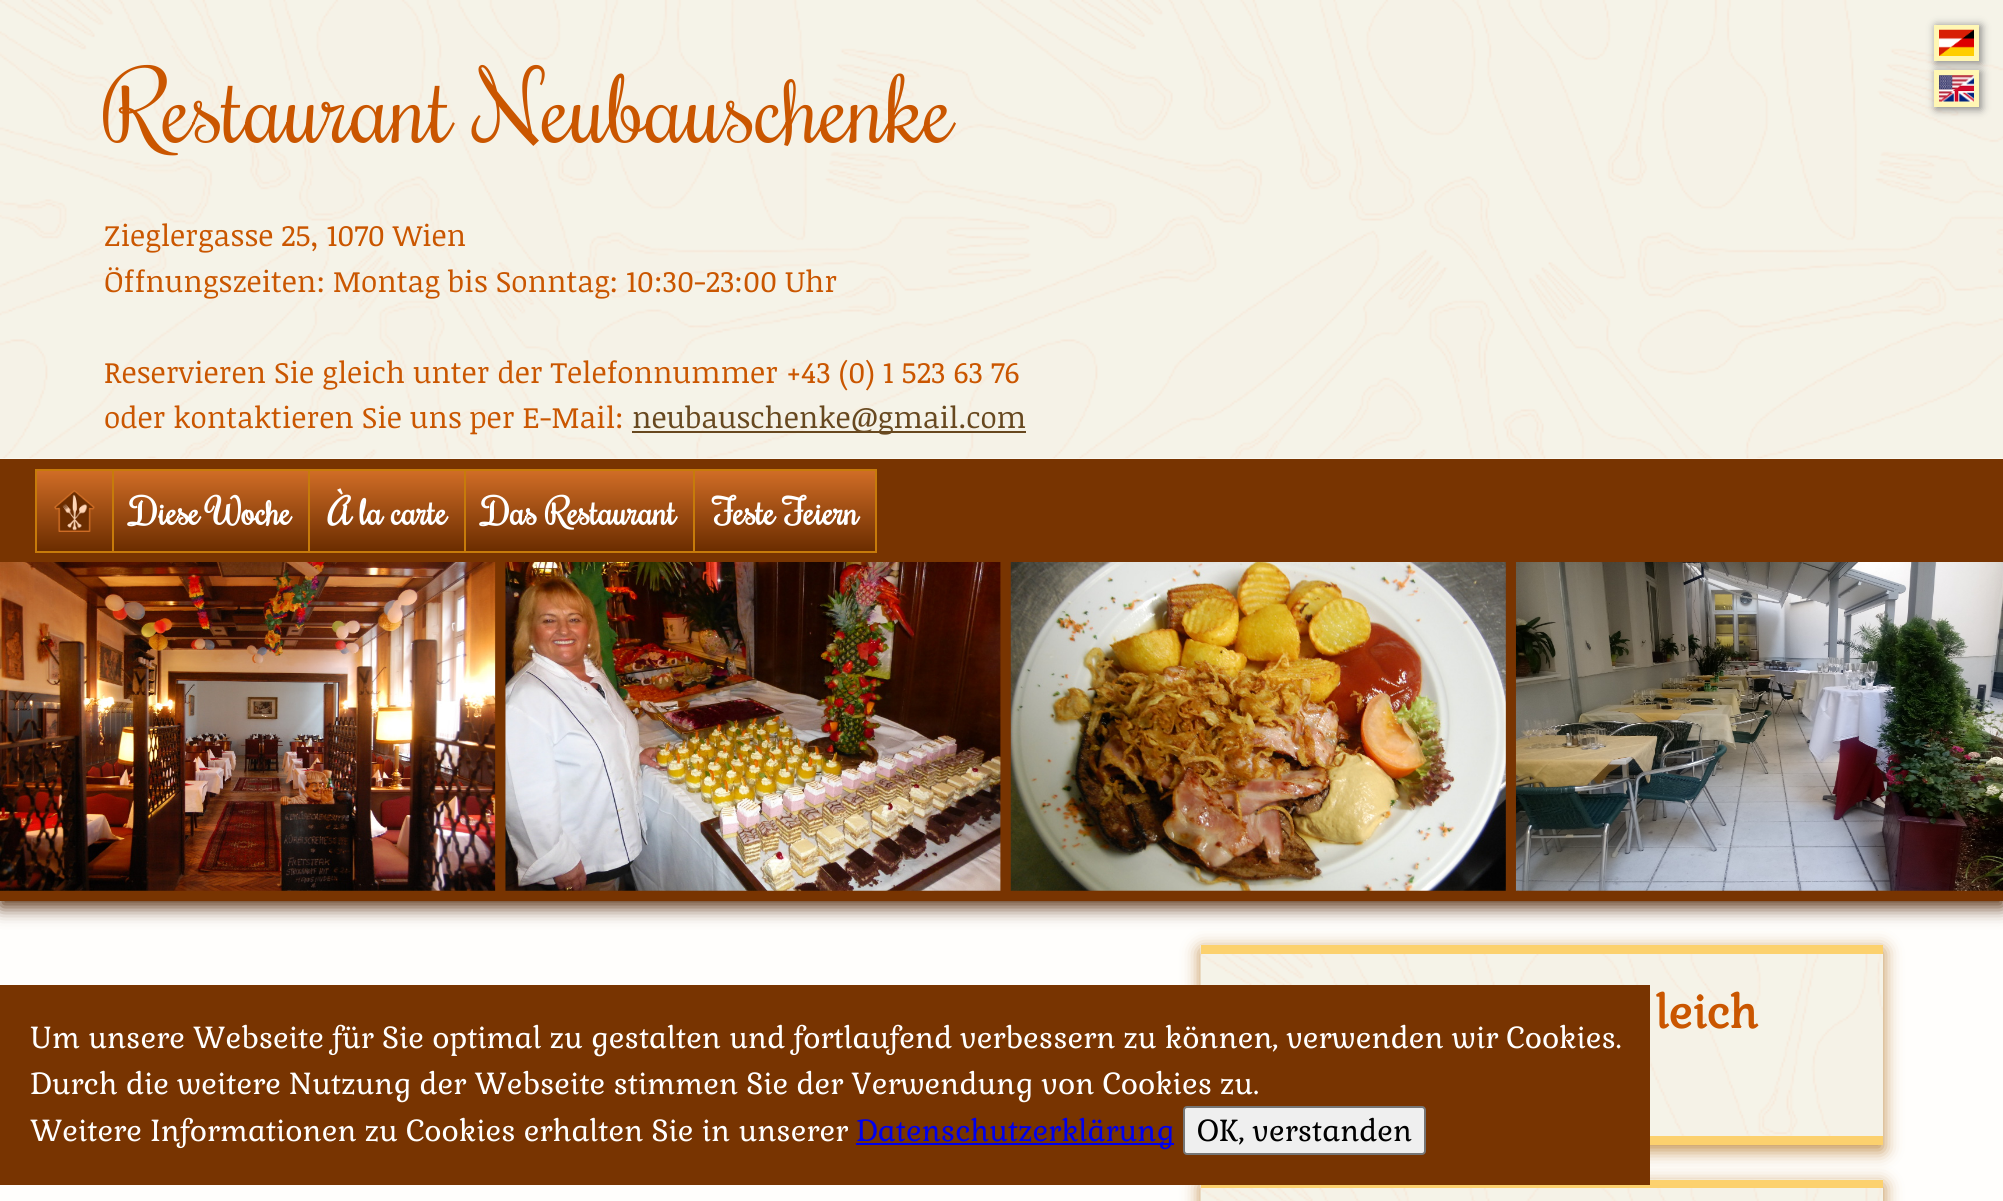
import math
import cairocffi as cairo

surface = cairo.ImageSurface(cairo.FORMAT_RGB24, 2003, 1201)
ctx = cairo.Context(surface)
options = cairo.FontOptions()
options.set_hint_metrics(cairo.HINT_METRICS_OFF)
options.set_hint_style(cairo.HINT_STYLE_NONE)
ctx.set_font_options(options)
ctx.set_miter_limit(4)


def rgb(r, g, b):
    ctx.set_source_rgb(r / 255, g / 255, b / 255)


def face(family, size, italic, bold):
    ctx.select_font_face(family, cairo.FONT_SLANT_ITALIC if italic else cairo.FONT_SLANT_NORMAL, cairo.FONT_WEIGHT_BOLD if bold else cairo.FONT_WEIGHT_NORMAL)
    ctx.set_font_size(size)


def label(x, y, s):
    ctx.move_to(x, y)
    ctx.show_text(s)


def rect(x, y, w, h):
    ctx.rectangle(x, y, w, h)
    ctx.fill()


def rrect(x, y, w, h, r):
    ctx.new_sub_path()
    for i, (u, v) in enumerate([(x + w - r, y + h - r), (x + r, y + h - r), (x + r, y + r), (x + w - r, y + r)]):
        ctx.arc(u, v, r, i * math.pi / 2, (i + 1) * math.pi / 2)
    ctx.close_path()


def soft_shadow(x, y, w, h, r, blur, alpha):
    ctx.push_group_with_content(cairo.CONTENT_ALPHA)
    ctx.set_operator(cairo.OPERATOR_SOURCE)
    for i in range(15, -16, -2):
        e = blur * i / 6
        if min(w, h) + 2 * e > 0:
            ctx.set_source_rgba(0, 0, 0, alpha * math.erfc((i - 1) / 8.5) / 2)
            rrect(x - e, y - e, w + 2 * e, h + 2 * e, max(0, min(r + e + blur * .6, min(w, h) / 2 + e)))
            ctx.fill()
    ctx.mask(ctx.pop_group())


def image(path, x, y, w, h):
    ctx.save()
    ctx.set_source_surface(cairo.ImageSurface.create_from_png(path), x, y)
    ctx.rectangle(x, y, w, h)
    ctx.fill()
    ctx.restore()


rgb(255, 254, 252)
ctx.paint()
image('image0.png', 0, 0, 2003, 459)
face('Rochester', 95.25, 0, 0)
rgb(202, 86, 0)
label(104, 143, 'Restaurant Neubauschenke')
rgb(128, 128, 128)
soft_shadow(1936, 26, 45, 37, 0, 4.5, 1)
rgb(255, 247, 180)
rect(1934, 25, 45, 36)
image('image1.png', 1939, 29, 35, 27)
rgb(128, 128, 128)
soft_shadow(1936, 72, 45, 37, 0, 4.5, 1)
rgb(255, 247, 180)
rect(1934, 70, 45, 37)
image('image2.png', 1939, 75, 35, 27)
face('Noticia Text', 29.75, 0, 0)
rgb(202, 86, 0)
label(104, 246, 'Zieglergasse 25, 1070 Wien')
label(104, 292, 'Öffnungszeiten: Montag bis Sonntag: 10:30-23:00 Uhr')
label(104, 383, 'Reservieren Sie gleich unter der Telefonnummer +43 (0) 1 523 63 76')
label(104, 428, 'oder kontaktieren Sie uns per E-Mail:')
rgb(103, 72, 31)
rect(632, 431, 394, 2)
label(632, 428, 'neubauschenke@gmail.com')
rgb(87, 46, 16)
soft_shadow(0, 567, 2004, 340, 0, 9, 1)
rgb(120, 52, 1)
rect(0, 459, 2003, 442)
image('image3.png', 0, 562, 496, 329)
image('image4.png', 505, 562, 496, 329)
image('image5.png', 1010, 562, 496, 329)
image('image6.png', 1515, 562, 488, 329)
gradient = cairo.LinearGradient(74, 471, 74, 551)
gradient.add_color_stop_rgba(0, 0.816, 0.427, 0.149, 1)
gradient.add_color_stop_rgba(1, 0.42, 0.176, 0, 1)
ctx.set_source(gradient)
rect(37, 471, 75, 80)
ctx.rectangle(36, 470, 77, 82)
rgb(199, 123, 10)
ctx.stroke()
image('image7.png', 54, 490, 41, 42)
gradient = cairo.LinearGradient(211, 471, 211, 551)
gradient.add_color_stop_rgba(0, 0.816, 0.427, 0.149, 1)
gradient.add_color_stop_rgba(1, 0.42, 0.176, 0, 1)
ctx.set_source(gradient)
rect(114, 471, 194, 80)
ctx.rectangle(113, 470, 196, 82)
rgb(199, 123, 10)
ctx.stroke()
face('Rochester', 35.75, 0, 1)
rgb(255, 255, 255)
label(131, 525, 'Diese Woche')
gradient = cairo.LinearGradient(387, 471, 387, 551)
gradient.add_color_stop_rgba(0, 0.816, 0.427, 0.149, 1)
gradient.add_color_stop_rgba(1, 0.42, 0.176, 0, 1)
ctx.set_source(gradient)
rect(310, 471, 154, 80)
ctx.rectangle(309, 470, 156, 82)
rgb(199, 123, 10)
ctx.stroke()
rgb(255, 255, 255)
label(328, 525, 'À la carte')
gradient = cairo.LinearGradient(579, 471, 579, 551)
gradient.add_color_stop_rgba(0, 0.816, 0.427, 0.149, 1)
gradient.add_color_stop_rgba(1, 0.42, 0.176, 0, 1)
ctx.set_source(gradient)
rect(466, 471, 227, 80)
ctx.rectangle(465, 470, 229, 82)
rgb(199, 123, 10)
ctx.stroke()
rgb(255, 255, 255)
label(483, 525, 'Das Restaurant')
gradient = cairo.LinearGradient(785, 471, 785, 551)
gradient.add_color_stop_rgba(0, 0.816, 0.427, 0.149, 1)
gradient.add_color_stop_rgba(1, 0.42, 0.176, 0, 1)
ctx.set_source(gradient)
rect(695, 471, 180, 80)
ctx.rectangle(694, 470, 182, 82)
rgb(199, 123, 10)
ctx.stroke()
rgb(255, 255, 255)
label(713, 525, 'Feste Feiern')
rgb(190, 136, 65)
soft_shadow(1201, 950, 682, 200, 0, 9, 1)
image('image8.png', 1200, 945, 683, 191)
rgb(252, 209, 110)
rect(1201, 945, 682, 9)
rect(1650, 1136, 233, 9)
face('Gabriela', 45, 0, 1)
rgb(202, 86, 0)
label(1655, 1028, 'leich')
rgb(190, 136, 65)
soft_shadow(1201, 1185, 682, 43, 0, 9, 1)
image('image9.png', 1200, 1179, 683, 22)
rgb(252, 209, 110)
rect(1201, 1180, 682, 8)
rgb(120, 52, 1)
rect(0, 985, 1650, 200)
face('Gabriela', 29.75, 0, 0)
rgb(255, 255, 255)
label(30, 1048, 'Um unsere Webseite für Sie optimal zu gestalten und fortlaufend verbessern zu können, verwenden wir Cookies.')
label(30, 1094, 'Durch die weitere Nutzung der Webseite stimmen Sie der Verwendung von Cookies zu.')
label(30, 1141, 'Weitere Informationen zu Cookies erhalten Sie in unserer')
rgb(0, 0, 238)
rect(856, 1143, 318, 2)
label(856, 1141, 'Datenschutzerklärung')
rgb(239, 239, 239)
rrect(1184, 1107, 241, 47, 3)
ctx.fill_preserve()
rgb(118, 118, 118)
ctx.stroke()
rgb(0, 0, 0)
label(1197, 1141, 'OK, verstanden')
surface.write_to_png('render.png')
